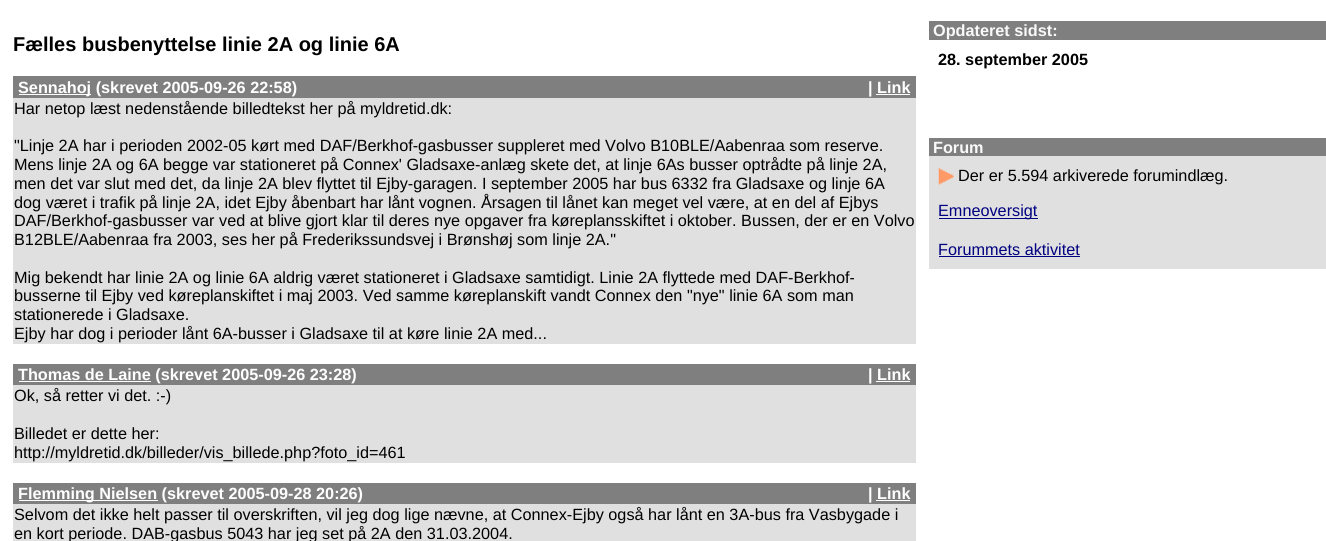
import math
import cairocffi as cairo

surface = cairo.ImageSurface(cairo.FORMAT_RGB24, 1326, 541)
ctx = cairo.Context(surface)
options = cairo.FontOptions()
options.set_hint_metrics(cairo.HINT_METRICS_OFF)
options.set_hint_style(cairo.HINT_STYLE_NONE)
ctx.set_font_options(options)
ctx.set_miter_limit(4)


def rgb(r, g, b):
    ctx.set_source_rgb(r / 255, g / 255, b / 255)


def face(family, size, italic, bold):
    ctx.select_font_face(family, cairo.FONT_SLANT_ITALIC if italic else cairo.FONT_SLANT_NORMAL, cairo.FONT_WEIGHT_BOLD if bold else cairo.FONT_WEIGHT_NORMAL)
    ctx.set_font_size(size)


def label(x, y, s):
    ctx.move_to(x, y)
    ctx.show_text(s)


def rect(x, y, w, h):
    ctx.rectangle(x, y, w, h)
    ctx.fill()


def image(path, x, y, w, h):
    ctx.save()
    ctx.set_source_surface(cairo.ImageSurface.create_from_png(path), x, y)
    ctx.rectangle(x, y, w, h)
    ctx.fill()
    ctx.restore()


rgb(255, 255, 255)
ctx.paint()
face('Liberation Sans', 20, 0, 1)
rgb(0, 0, 0)
label(13, 51, 'Fælles busbenyttelse linie 2A og linie 6A')
rgb(127, 127, 127)
rect(13, 76, 903, 22)
rgb(255, 255, 255)
rect(19, 94, 72, 1)
face('Liberation Sans', 16.25, 0, 1)
label(18, 93, 'Sennahoj (skrevet 2005-09-26 22:58)')
label(868, 93, '| Link')
rect(876, 94, 34, 1)
rgb(224, 224, 224)
rect(13, 98, 903, 246)
face('Liberation Sans', 16.25, 0, 0)
rgb(0, 0, 0)
label(14, 114, 'Har netop læst nedenstående billedtekst her på myldretid.dk:')
label(14, 151, '"Linje 2A har i perioden 2002-05 kørt med DAF/Berkhof-gasbusser suppleret med Volvo B10BLE/Aabenraa som reserve.')
label(14, 170, 'Mens linje 2A og 6A begge var stationeret på Connex\' Gladsaxe-anlæg skete det, at linje 6As busser optrådte på linje 2A,')
label(14, 189, 'men det var slut med det, da linje 2A blev flyttet til Ejby-garagen. I september 2005 har bus 6332 fra Gladsaxe og linje 6A')
label(14, 208, 'dog været i trafik på linje 2A, idet Ejby åbenbart har lånt vognen. Årsagen til lånet kan meget vel være, at en del af Ejbys')
label(14, 226, 'DAF/Berkhof-gasbusser var ved at blive gjort klar til deres nye opgaver fra køreplansskiftet i oktober. Bussen, der er en Volvo')
label(14, 245, 'B12BLE/Aabenraa fra 2003, ses her på Frederikssundsvej i Brønshøj som linje 2A."')
label(14, 283, 'Mig bekendt har linie 2A og linie 6A aldrig været stationeret i Gladsaxe samtidigt. Linie 2A flyttede med DAF-Berkhof-')
label(14, 301, 'busserne til Ejby ved køreplanskiftet i maj 2003. Ved samme køreplanskift vandt Connex den "nye" linie 6A som man')
label(14, 320, 'stationerede i Gladsaxe.')
label(14, 339, 'Ejby har dog i perioder lånt 6A-busser i Gladsaxe til at køre linie 2A med...')
rgb(127, 127, 127)
rect(13, 364, 903, 21)
rgb(255, 255, 255)
rect(19, 381, 132, 1)
face('Liberation Sans', 16.25, 0, 1)
label(18, 380, 'Thomas de Laine (skrevet 2005-09-26 23:28)')
label(868, 380, '| Link')
rect(876, 381, 34, 1)
rgb(224, 224, 224)
rect(13, 385, 903, 78)
face('Liberation Sans', 16.25, 0, 0)
rgb(0, 0, 0)
label(14, 401, 'Ok, så retter vi det. :-)')
label(14, 439, 'Billedet er dette her:')
label(14, 458, 'http://myldretid.dk/billeder/vis_billede.php?foto_id=461')
rgb(127, 127, 127)
rect(13, 483, 903, 21)
rgb(255, 255, 255)
rect(19, 500, 139, 1)
face('Liberation Sans', 16.25, 0, 1)
label(18, 499, 'Flemming Nielsen (skrevet 2005-09-28 20:26)')
label(868, 499, '| Link')
rect(876, 500, 34, 1)
rgb(224, 224, 224)
rect(13, 504, 903, 37)
face('Liberation Sans', 16.25, 0, 0)
rgb(0, 0, 0)
label(14, 520, 'Selvom det ikke helt passer til overskriften, vil jeg dog lige nævne, at Connex-Ejby også har lånt en 3A-bus fra Vasbygade i')
label(14, 539, 'en kort periode. DAB-gasbus 5043 har jeg set på 2A den 31.03.2004.')
rgb(127, 127, 127)
rect(929, 21, 397, 19)
face('Liberation Sans', 16.25, 0, 1)
rgb(249, 249, 249)
label(933, 36, 'Opdateret sidst:')
rgb(0, 0, 0)
label(938, 65, '28. september 2005')
rgb(127, 127, 127)
rect(929, 138, 397, 18)
rgb(249, 249, 249)
label(933, 153, 'Forum')
rgb(224, 224, 224)
rect(929, 156, 397, 113)
image('image0.png', 938, 168, 16, 17)
face('Liberation Sans', 16.25, 0, 0)
rgb(0, 0, 0)
label(958, 181, 'Der er 5.594 arkiverede forumindlæg.')
rgb(0, 0, 128)
rect(939, 218, 99, 1)
label(938, 216, 'Emneoversigt')
label(938, 255, 'Forummets aktivitet')
rect(939, 256, 141, 1)
surface.write_to_png('render.png')
